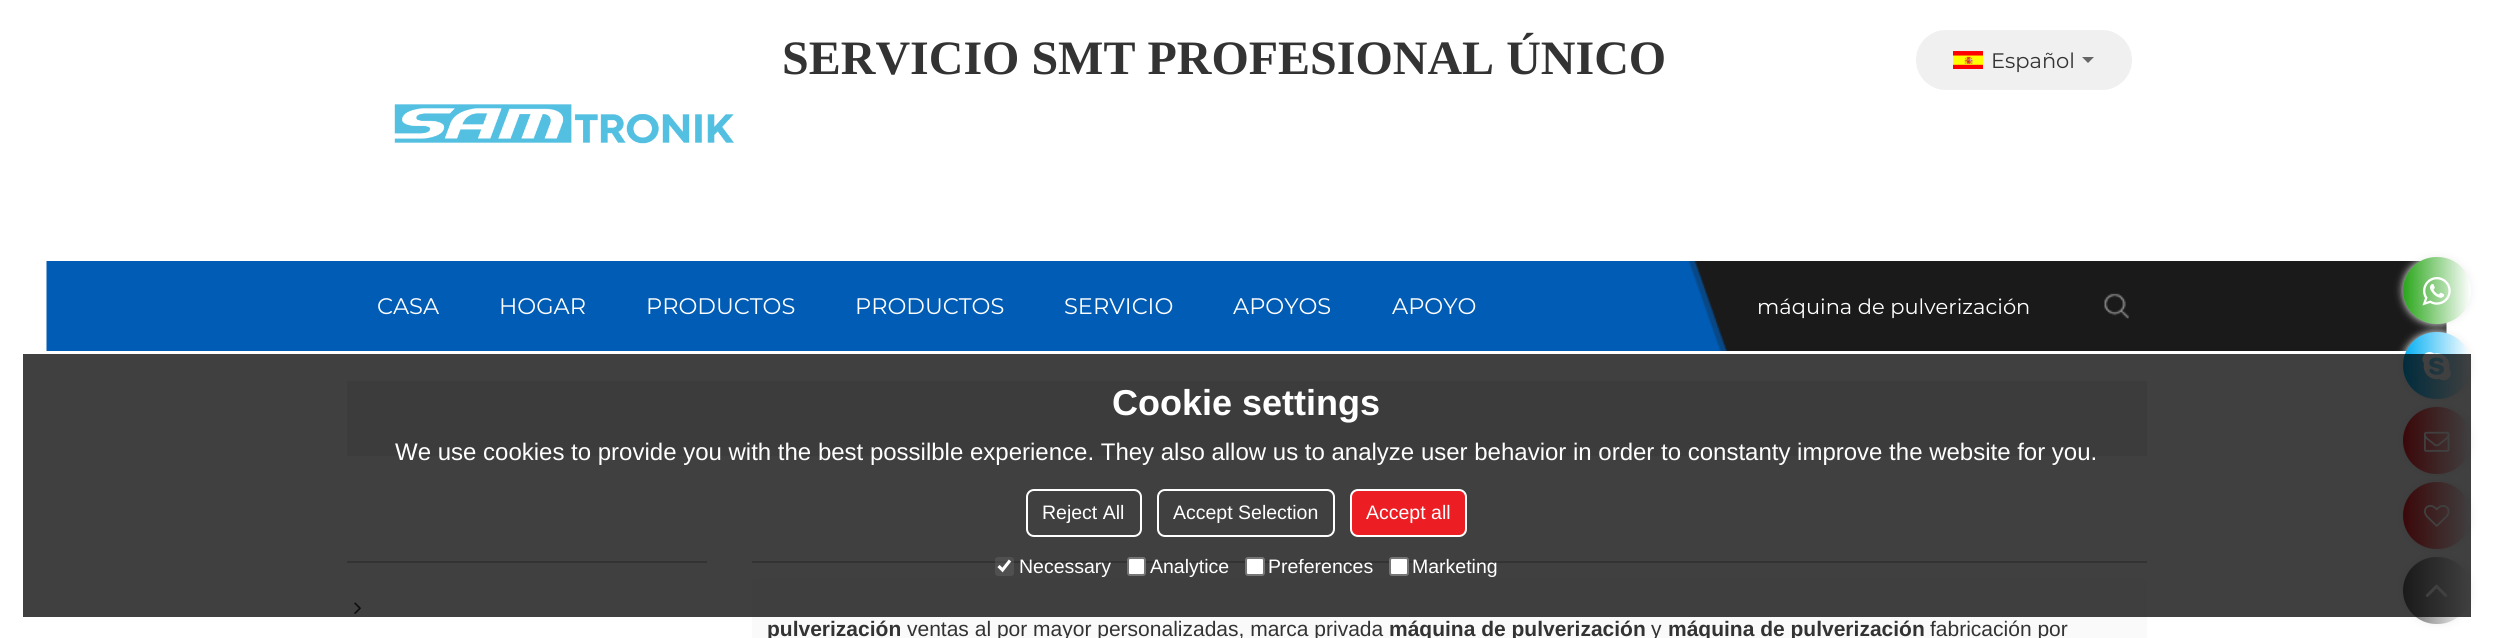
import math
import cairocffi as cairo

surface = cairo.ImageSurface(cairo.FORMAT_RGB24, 2493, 638)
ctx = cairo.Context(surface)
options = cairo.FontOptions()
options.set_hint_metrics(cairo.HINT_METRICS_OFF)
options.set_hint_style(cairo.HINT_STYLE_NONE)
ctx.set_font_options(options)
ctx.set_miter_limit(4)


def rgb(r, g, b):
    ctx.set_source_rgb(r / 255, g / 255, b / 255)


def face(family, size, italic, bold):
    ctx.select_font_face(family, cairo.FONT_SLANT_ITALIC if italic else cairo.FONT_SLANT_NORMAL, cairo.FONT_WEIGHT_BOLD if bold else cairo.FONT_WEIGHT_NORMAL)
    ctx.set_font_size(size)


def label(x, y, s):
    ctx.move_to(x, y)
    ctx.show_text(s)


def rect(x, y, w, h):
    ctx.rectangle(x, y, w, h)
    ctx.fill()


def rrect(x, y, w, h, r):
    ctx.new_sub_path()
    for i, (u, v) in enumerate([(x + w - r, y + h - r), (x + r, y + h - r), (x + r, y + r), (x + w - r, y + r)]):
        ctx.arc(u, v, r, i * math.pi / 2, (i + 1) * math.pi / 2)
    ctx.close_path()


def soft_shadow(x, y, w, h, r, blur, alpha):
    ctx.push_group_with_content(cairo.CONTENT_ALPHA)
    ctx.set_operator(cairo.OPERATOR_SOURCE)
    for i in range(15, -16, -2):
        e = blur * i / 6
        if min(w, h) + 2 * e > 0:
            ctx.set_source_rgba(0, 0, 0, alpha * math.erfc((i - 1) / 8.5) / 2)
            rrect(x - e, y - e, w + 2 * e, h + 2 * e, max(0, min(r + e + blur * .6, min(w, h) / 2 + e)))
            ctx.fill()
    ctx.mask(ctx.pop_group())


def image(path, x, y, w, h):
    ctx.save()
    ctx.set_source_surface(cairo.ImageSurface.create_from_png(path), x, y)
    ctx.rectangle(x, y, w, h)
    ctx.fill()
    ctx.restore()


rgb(255, 255, 255)
ctx.paint()
face('Liberation Serif', 48, 0, 1)
rgb(51, 51, 51)
label(782, 74, 'SERVICIO SMT PROFESIONAL ÚNICO')
rgb(240, 240, 240)
rrect(1916, 30, 216, 60, 30)
ctx.fill()
image('image0.png', 1953, 51, 30, 18)
face('Montserrat Thin', 21, 0, 0)
rgb(51, 51, 51)
label(1991, 68, 'Español')
rgb(102, 102, 102)
ctx.new_path()
ctx.move_to(2082, 57)
ctx.line_to(2094, 57)
ctx.line_to(2088, 63)
ctx.close_path()
ctx.fill()
image('image1.png', 394, 104, 340, 40)
image('image2.png', 46, 261, 2401, 90)
face('Montserrat Thin', 22.5, 0, 0)
rgb(255, 255, 255)
label(377, 314, 'CASA')
label(499, 314, 'HOGAR')
label(646, 314, 'PRODUCTOS')
label(855, 314, 'PRODUCTOS')
label(1064, 314, 'SERVICIO')
label(1233, 314, 'APOYOS')
label(1392, 314, 'APOYO')
face('Montserrat Thin', 21, 0, 0)
label(1757, 314, 'máquina de pulverización')
image('image3.png', 2104, 293, 25, 26)
rgb(240, 240, 240)
rect(347, 381, 1800, 75)
rgb(204, 204, 204)
rect(347, 561, 360, 2)
image('image4.png', 354, 602, 7, 12)
rect(752, 561, 1395, 2)
rgb(250, 250, 250)
rrect(752, 578, 1395, 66, 6)
ctx.fill()
face('Liberation Sans', 21, 0, 1)
rgb(51, 51, 51)
label(767, 636, 'pulverización')
face('Liberation Sans', 21, 0, 0)
label(907, 636, 'ventas al por mayor personalizadas, marca privada')
face('Liberation Sans', 21, 0, 1)
label(1389, 636, 'máquina de pulverización')
face('Liberation Sans', 21, 0, 0)
label(1651, 636, 'y')
face('Liberation Sans', 21, 0, 1)
label(1668, 636, 'máquina de pulverización')
face('Liberation Sans', 21, 0, 0)
label(1930, 636, 'fabricación por')
rgb(238, 238, 238)
soft_shadow(2403, 257, 68, 67, 33.5, 4, 1)
gradient = cairo.LinearGradient(2403, 290, 2471, 290)
gradient.add_color_stop_rgba(0, 0.161, 0.651, 0.102, 1)
gradient.add_color_stop_rgba(1, 1, 1, 1, 1)
ctx.set_source(gradient)
rrect(2403, 257, 68, 67, 33.5)
ctx.fill()
image('image5.png', 2422, 277, 29, 29)
rgb(238, 238, 238)
soft_shadow(2403, 332, 68, 67, 33.5, 4, 1)
gradient = cairo.LinearGradient(2403, 365, 2471, 365)
gradient.add_color_stop_rgba(0, 0.004, 0.682, 0.953, 1)
gradient.add_color_stop_rgba(1, 1, 1, 1, 1)
ctx.set_source(gradient)
rrect(2403, 332, 68, 67, 33.5)
ctx.fill()
image('image6.png', 2422, 352, 29, 29)
rgb(238, 238, 238)
soft_shadow(2403, 407, 68, 67, 33.5, 4, 1)
gradient = cairo.LinearGradient(2403, 440, 2471, 440)
gradient.add_color_stop_rgba(0, 0.925, 0.114, 0.137, 1)
gradient.add_color_stop_rgba(1, 1, 1, 1, 1)
ctx.set_source(gradient)
rrect(2403, 407, 68, 67, 33.5)
ctx.fill()
image('image7.png', 2424, 431, 26, 21)
rgb(238, 238, 238)
soft_shadow(2403, 482, 68, 67, 33.5, 4, 1)
gradient = cairo.LinearGradient(2403, 515, 2471, 515)
gradient.add_color_stop_rgba(0, 0.925, 0.114, 0.137, 1)
gradient.add_color_stop_rgba(1, 1, 1, 1, 1)
ctx.set_source(gradient)
rrect(2403, 482, 68, 67, 33.5)
ctx.fill()
image('image8.png', 2424, 505, 26, 22)
rgb(238, 238, 238)
soft_shadow(2403, 557, 68, 67, 33.5, 4, 1)
gradient = cairo.LinearGradient(2403, 590, 2471, 590)
gradient.add_color_stop_rgba(0, 0.4, 0.4, 0.4, 1)
gradient.add_color_stop_rgba(1, 1, 1, 1, 1)
ctx.set_source(gradient)
rrect(2403, 557, 68, 67, 33.5)
ctx.fill()
image('image9.png', 2425, 584, 23, 14)
ctx.set_source_rgba(0, 0, 0, 0.75)
rect(23, 354, 2448, 263)
face('Liberation Sans', 36, 0, 1)
rgb(255, 255, 255)
label(1112, 415, 'Cookie settings')
face('Liberation Sans', 24, 0, 0)
label(395, 460, 'We use cookies to provide you with the best possilble experience. They also allow us to analyze user behavior in order to constanty improve the website for you.')
rrect(1027, 490, 114, 46, 7)
ctx.stroke()
face('Liberation Sans', 19.5, 0, 0)
label(1042, 519, 'Reject All')
rrect(1158, 490, 176, 46, 7)
ctx.stroke()
label(1173, 519, 'Accept Selection')
rgb(236, 29, 35)
rrect(1351, 490, 115, 46, 7)
ctx.fill_preserve()
rgb(255, 255, 255)
ctx.stroke()
label(1366, 519, 'Accept all')
ctx.set_source_rgba(0.463, 0.463, 0.463, 0.3)
rrect(995, 557, 19, 19, 3)
ctx.fill()
ctx.new_path()
ctx.move_to(998.5, 566)
ctx.line_to(1002.5, 570)
ctx.line_to(1010, 560.5)
rgb(255, 255, 255)
ctx.set_line_width(3.1)
ctx.stroke()
label(1019, 573, 'Necessary')
rrect(1128, 558, 17, 17, 2)
ctx.fill_preserve()
rgb(118, 118, 118)
ctx.set_line_width(2)
ctx.stroke()
rgb(255, 255, 255)
label(1150, 573, 'Analytice')
rrect(1246, 558, 18, 17, 2)
ctx.fill_preserve()
rgb(118, 118, 118)
ctx.stroke()
rgb(255, 255, 255)
label(1268, 573, 'Preferences')
rrect(1390, 558, 18, 17, 2)
ctx.fill_preserve()
rgb(118, 118, 118)
ctx.stroke()
rgb(255, 255, 255)
label(1412, 573, 'Marketing')
surface.write_to_png('render.png')
